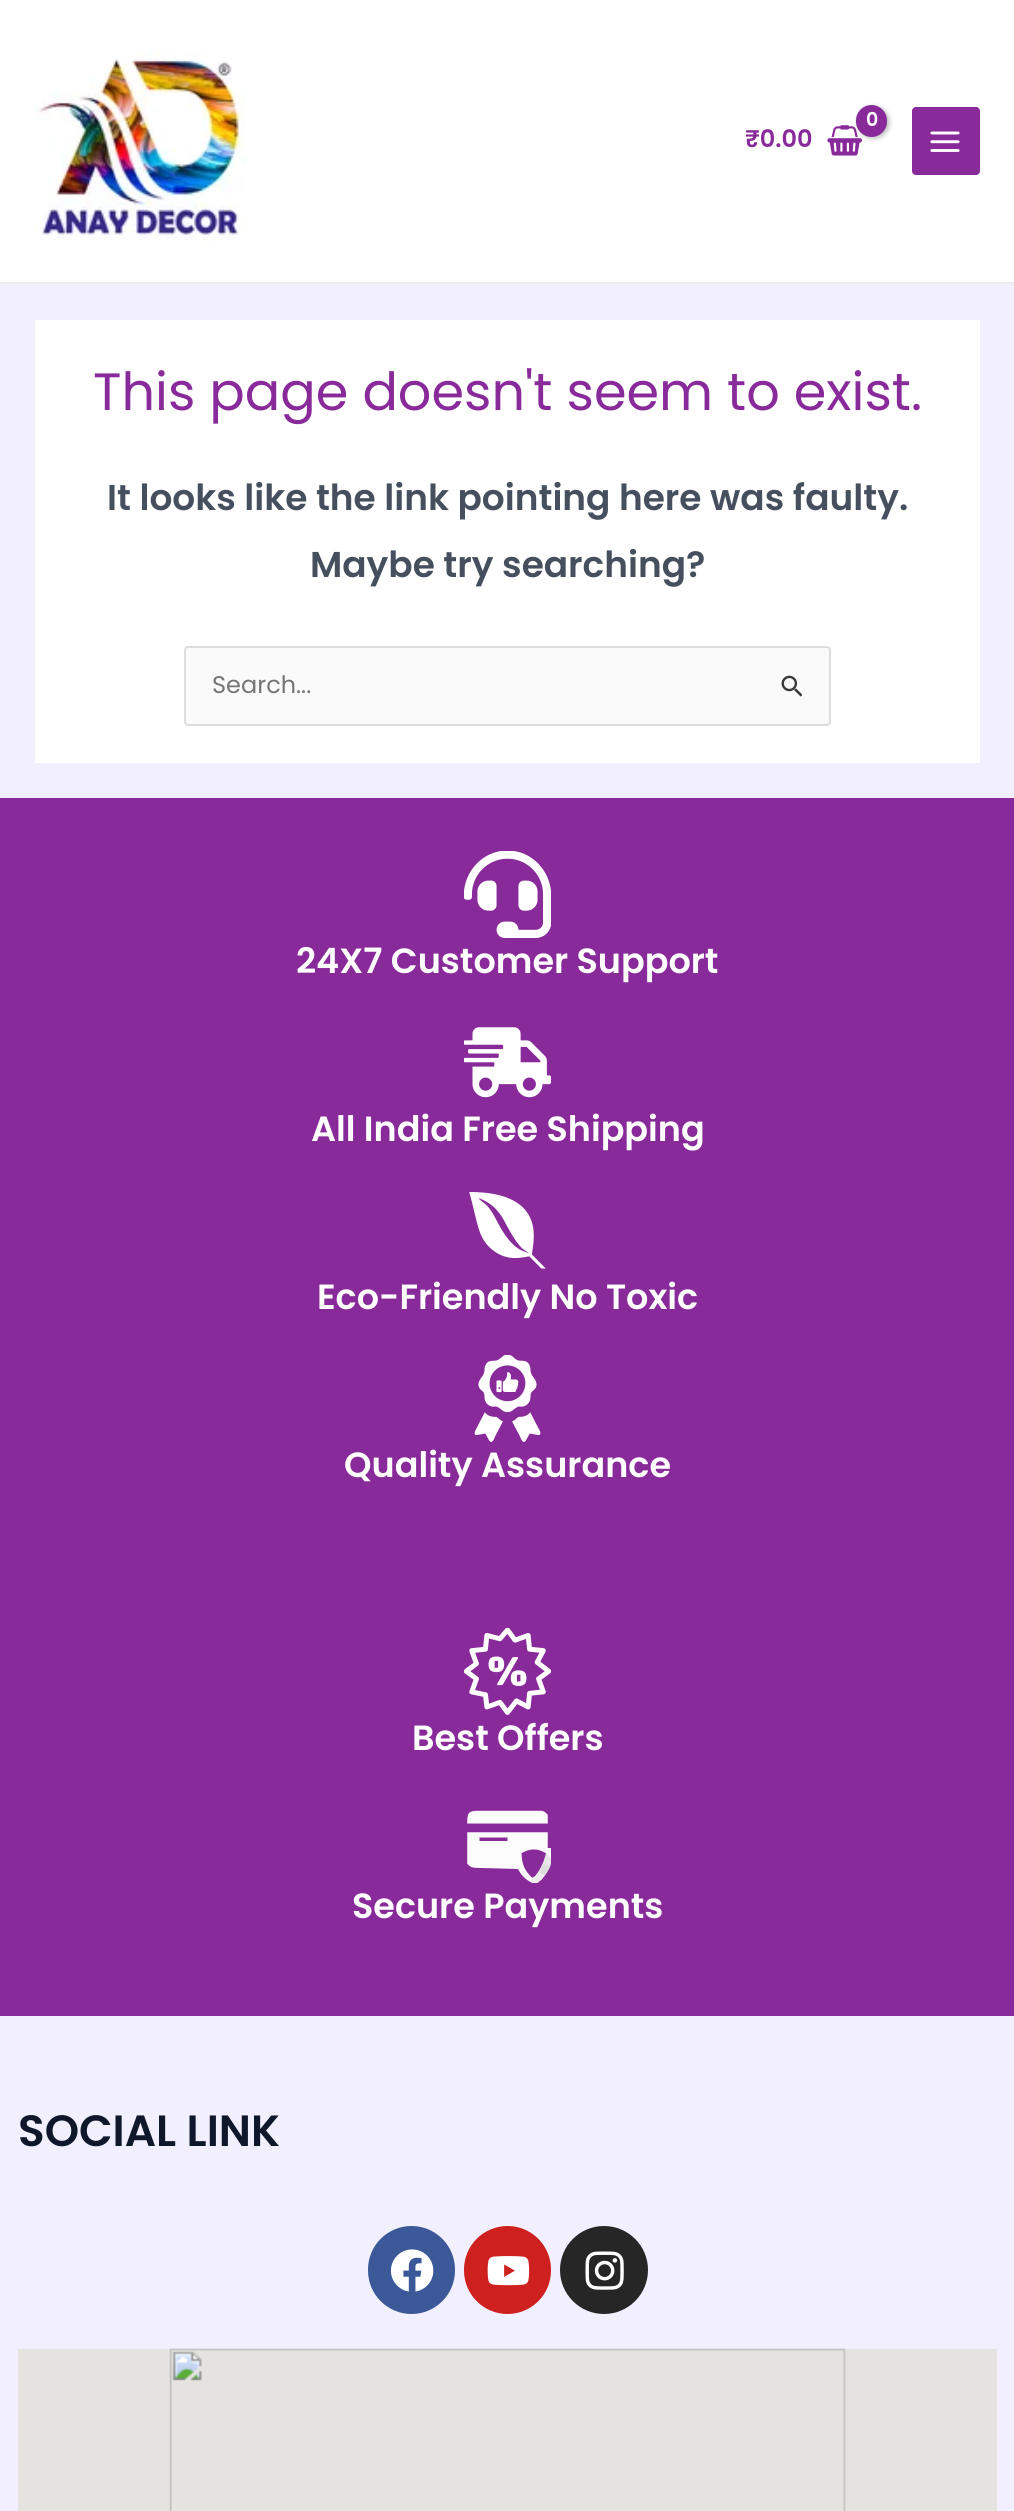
import math
import cairocffi as cairo

surface = cairo.ImageSurface(cairo.FORMAT_RGB24, 1014, 2511)
ctx = cairo.Context(surface)
options = cairo.FontOptions()
options.set_hint_metrics(cairo.HINT_METRICS_OFF)
options.set_hint_style(cairo.HINT_STYLE_NONE)
ctx.set_font_options(options)
ctx.set_miter_limit(4)


def rgb(r, g, b):
    ctx.set_source_rgb(r / 255, g / 255, b / 255)


def face(family, size, italic, bold):
    ctx.select_font_face(family, cairo.FONT_SLANT_ITALIC if italic else cairo.FONT_SLANT_NORMAL, cairo.FONT_WEIGHT_BOLD if bold else cairo.FONT_WEIGHT_NORMAL)
    ctx.set_font_size(size)


def label(x, y, s):
    ctx.move_to(x, y)
    ctx.show_text(s)


def tracked(x, y, s, letter, word):
    ctx.move_to(x, y)
    for ch in s:
        ctx.show_text(ch)
        ctx.rel_move_to(letter + word * (ch == ' '), 0)


def rect(x, y, w, h):
    ctx.rectangle(x, y, w, h)
    ctx.fill()


def rrect(x, y, w, h, r):
    ctx.new_sub_path()
    for i, (u, v) in enumerate([(x + w - r, y + h - r), (x + r, y + h - r), (x + r, y + r), (x + w - r, y + r)]):
        ctx.arc(u, v, r, i * math.pi / 2, (i + 1) * math.pi / 2)
    ctx.close_path()


def soft_shadow(x, y, w, h, r, blur, alpha):
    ctx.push_group_with_content(cairo.CONTENT_ALPHA)
    ctx.set_operator(cairo.OPERATOR_SOURCE)
    for i in range(15, -16, -2):
        e = blur * i / 6
        if min(w, h) + 2 * e > 0:
            ctx.set_source_rgba(0, 0, 0, alpha * math.erfc((i - 1) / 8.5) / 2)
            rrect(x - e, y - e, w + 2 * e, h + 2 * e, max(0, min(r + e + blur * .6, min(w, h) / 2 + e)))
            ctx.fill()
    ctx.mask(ctx.pop_group())


def image(path, x, y, w, h):
    ctx.save()
    ctx.set_source_surface(cairo.ImageSurface.create_from_png(path), x, y)
    ctx.rectangle(x, y, w, h)
    ctx.fill()
    ctx.restore()


rgb(242, 240, 254)
ctx.paint()
rgb(255, 255, 255)
rect(0, 0, 1014, 282)
rgb(237, 237, 237)
rect(0, 282, 1014, 2)
image('image0.png', 35, 51, 210, 196)
image('image1.png', 827, 125, 35, 31)
rgb(0, 0, 0)
soft_shadow(858, 107, 31, 31, 15.5, 2.5, 0.3)
rgb(137, 42, 155)
rrect(856, 105, 31, 32, 15.5)
ctx.fill()
face('Poppins SemiBold', 19, 0, 0)
rgb(255, 255, 255)
tracked(866, 126, '0', -1, 0)
face('Poppins SemiBold', 24, 0, 0)
rgb(137, 42, 155)
label(745, 147, '₹0.00')
rrect(912, 107, 68, 68, 4)
ctx.fill()
image('image2.png', 930, 131, 30, 21)
rgb(255, 255, 255)
rect(35, 320, 945, 443)
face('Poppins', 52.5, 0, 0)
rgb(137, 42, 155)
label(93, 410, 'This page doesn\'t seem to exist.')
face('Poppins SemiBold', 35.9, 0, 0)
rgb(69, 79, 94)
label(107, 510, 'It looks like the link pointing here was faulty.')
label(310, 577, 'Maybe try searching?')
rgb(250, 250, 250)
rrect(185, 647, 645, 78, 3)
ctx.fill_preserve()
rgb(221, 221, 221)
ctx.stroke()
face('Poppins', 24, 0, 0)
rgb(117, 117, 117)
label(212, 693, 'Search...')
image('image3.png', 781, 675, 21, 22)
rgb(137, 42, 155)
rect(0, 798, 1014, 1218)
image('image4.png', 464, 851, 87, 87)
face('Poppins SemiBold', 35, 0, 0)
rgb(255, 255, 255)
label(296, 973, '24X7 Customer Support')
image('image5.png', 464, 1027, 87, 71)
label(311, 1141, 'All India Free Shipping')
image('image6.png', 469, 1192, 77, 77)
label(317, 1309, 'Eco-Friendly No Toxic')
image('image7.png', 474, 1355, 67, 87)
label(344, 1477, 'Quality Assurance')
image('image8.png', 464, 1628, 87, 87)
label(412, 1750, 'Best Offers')
image('image9.png', 467, 1810, 84, 73)
label(352, 1918, 'Secure Payments')
face('Poppins SemiBold', 43.75, 0, 0)
rgb(15, 23, 42)
label(18, 2146, 'SOCIAL LINK')
rgb(59, 89, 152)
rrect(368, 2226, 87, 88, 43.5)
ctx.fill()
image('image10.png', 390, 2249, 44, 43)
rgb(205, 32, 31)
rrect(464, 2226, 87, 88, 43.5)
ctx.fill()
image('image11.png', 487, 2256, 43, 30)
rgb(38, 38, 38)
ctx.arc(604, 2270, 44, 0, 2 * math.pi)
ctx.fill()
image('image12.png', 585, 2251, 39, 39)
image('image13.png', 18, 2348, 979, 163)
surface.write_to_png('render.png')
